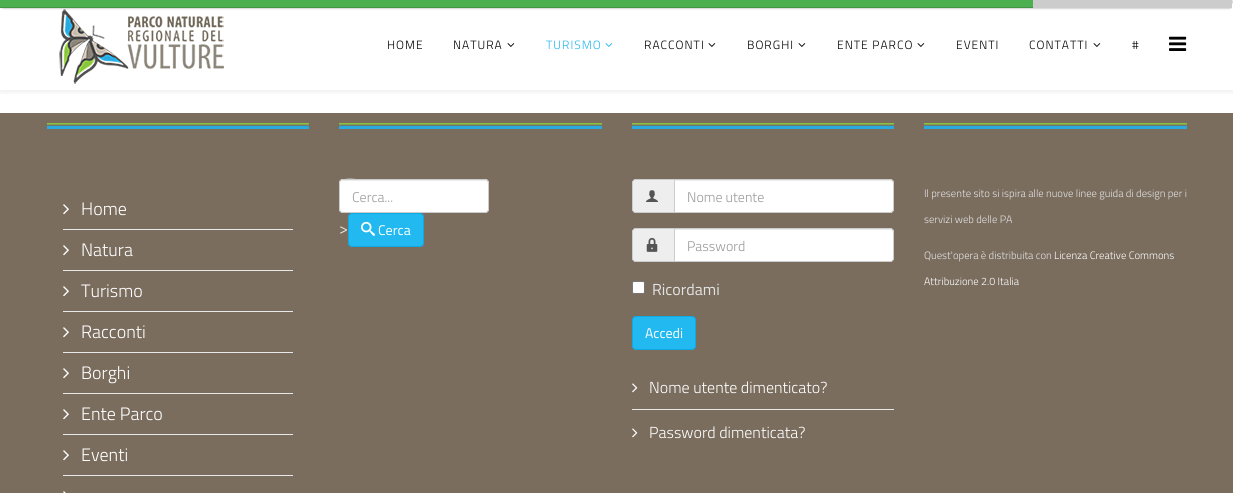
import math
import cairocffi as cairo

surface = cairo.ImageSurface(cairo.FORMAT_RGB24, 1233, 493)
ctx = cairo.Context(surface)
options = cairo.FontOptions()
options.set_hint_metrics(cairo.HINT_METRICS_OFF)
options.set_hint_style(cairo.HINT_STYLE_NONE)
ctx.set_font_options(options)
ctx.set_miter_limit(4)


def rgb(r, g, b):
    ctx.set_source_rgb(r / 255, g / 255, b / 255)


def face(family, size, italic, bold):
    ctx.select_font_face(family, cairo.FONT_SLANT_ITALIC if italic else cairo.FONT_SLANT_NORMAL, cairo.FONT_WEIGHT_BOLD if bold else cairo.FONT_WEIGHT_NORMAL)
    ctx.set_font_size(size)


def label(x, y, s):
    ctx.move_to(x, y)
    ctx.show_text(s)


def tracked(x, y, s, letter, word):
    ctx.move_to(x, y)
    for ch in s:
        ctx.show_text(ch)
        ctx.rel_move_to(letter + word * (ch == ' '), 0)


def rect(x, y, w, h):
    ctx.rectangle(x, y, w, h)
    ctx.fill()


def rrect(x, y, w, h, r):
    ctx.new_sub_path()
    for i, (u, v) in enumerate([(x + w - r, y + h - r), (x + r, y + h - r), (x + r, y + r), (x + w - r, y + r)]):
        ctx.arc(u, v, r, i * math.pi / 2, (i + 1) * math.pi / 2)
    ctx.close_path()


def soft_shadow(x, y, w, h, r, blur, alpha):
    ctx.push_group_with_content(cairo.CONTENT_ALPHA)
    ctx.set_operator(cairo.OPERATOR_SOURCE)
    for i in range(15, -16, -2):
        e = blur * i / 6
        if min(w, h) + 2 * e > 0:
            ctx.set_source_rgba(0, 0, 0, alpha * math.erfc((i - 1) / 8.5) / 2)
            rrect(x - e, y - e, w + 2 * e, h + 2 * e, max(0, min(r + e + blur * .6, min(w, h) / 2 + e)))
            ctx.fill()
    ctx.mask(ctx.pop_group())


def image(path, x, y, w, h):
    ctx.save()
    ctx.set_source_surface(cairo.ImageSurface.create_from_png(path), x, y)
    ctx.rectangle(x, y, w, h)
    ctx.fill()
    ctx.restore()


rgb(255, 255, 255)
ctx.paint()
rgb(0, 0, 0)
soft_shadow(0, 3, 1233, 90, 0, 1.5, 0.05)
rgb(255, 255, 255)
rect(0, 2, 1233, 88)
image('image0.png', 59, 9, 165, 75)
rgb(153, 153, 153)
soft_shadow(0, 0, 1233, 8, 5, 1, 1)
rgb(255, 255, 255)
ctx.new_path()
ctx.move_to(5, 0)
ctx.line_to(1228, 0)
ctx.curve_to(1231, 0, 1233, 2, 1233, 5)
ctx.line_to(1233, 8)
ctx.line_to(0, 8)
ctx.line_to(0, 5)
ctx.curve_to(0, 2, 2, 0, 5, 0)
ctx.close_path()
ctx.fill()
rgb(204, 204, 204)
rect(1033, 0, 199, 8)
rgb(76, 175, 80)
rect(0, 0, 1033, 7)
rgb(65, 149, 68)
rect(0, 7, 1033, 1)
face('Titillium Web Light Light', 12, 0, 0)
rgb(0, 0, 0)
tracked(387, 49, 'HOME', 1, 0)
tracked(453, 49, 'NATURA', 1, 0)
image('image1.png', 507, 43, 8, 4)
rgb(34, 184, 240)
tracked(546, 49, 'TURISMO', 1, 0)
image('image2.png', 605, 43, 8, 4)
rgb(0, 0, 0)
tracked(644, 49, 'RACCONTI', 1, 0)
image('image1.png', 708, 43, 8, 4)
tracked(747, 49, 'BORGHI', 1, 0)
image('image1.png', 798, 43, 8, 4)
tracked(837, 49, 'ENTE PARCO', 1, 0)
image('image1.png', 917, 43, 8, 4)
tracked(956, 49, 'EVENTI', 1, 0)
tracked(1029, 49, 'CONTATTI', 1, 0)
image('image1.png', 1093, 43, 8, 4)
tracked(1132, 49, '#', 1, 0)
image('image3.png', 1169, 36, 18, 15)
rgb(122, 109, 94)
rect(0, 113, 1233, 380)
image('image4.png', 47, 123, 262, 6)
rgb(232, 232, 232)
rect(63, 229, 230, 1)
image('image5.png', 63, 204, 6, 11)
face('Titillium Web Light Light', 18, 0, 0)
rgb(255, 255, 255)
label(81, 215, 'Home')
rgb(232, 232, 232)
rect(63, 270, 230, 1)
image('image5.png', 63, 245, 6, 11)
rgb(255, 255, 255)
label(81, 256, 'Natura')
rgb(232, 232, 232)
rect(63, 311, 230, 1)
image('image5.png', 63, 286, 6, 11)
rgb(255, 255, 255)
label(81, 297, 'Turismo')
rgb(232, 232, 232)
rect(63, 352, 230, 1)
image('image5.png', 63, 327, 6, 11)
rgb(255, 255, 255)
label(81, 338, 'Racconti')
rgb(232, 232, 232)
rect(63, 393, 230, 1)
image('image5.png', 63, 368, 6, 11)
rgb(255, 255, 255)
label(81, 379, 'Borghi')
rgb(232, 232, 232)
rect(63, 434, 230, 1)
image('image5.png', 63, 409, 6, 11)
rgb(255, 255, 255)
label(81, 420, 'Ente Parco')
rgb(232, 232, 232)
rect(63, 475, 230, 1)
image('image5.png', 63, 450, 6, 11)
rgb(255, 255, 255)
label(81, 461, 'Eventi')
image('image6.png', 63, 491, 3, 2)
image('image7.png', 339, 123, 263, 6)
rrect(339, 179, 150, 34, 4)
ctx.fill()
rgb(236, 236, 236)
ctx.new_path()
ctx.move_to(343, 181)
ctx.line_to(485, 181)
ctx.curve_to(487, 181, 488, 182, 488, 184)
ctx.curve_to(488, 182, 488, 181, 486, 180)
ctx.line_to(367, 180)
ctx.curve_to(359, 180, 340, 175, 340, 184)
ctx.curve_to(340, 182, 341, 181, 343, 181)
ctx.close_path()
ctx.fill()
rrect(339.5, 179.5, 149, 33, 3.5)
rgb(204, 204, 204)
ctx.set_line_width(1)
ctx.stroke()
face('Titillium Web Light Light', 14, 0, 0)
rgb(153, 153, 153)
label(352, 202, 'Cerca...')
face('Titillium Web', 16, 0, 0)
rgb(227, 227, 227)
label(339, 234, '>')
rgb(34, 184, 240)
rrect(348.5, 213.5, 75, 33, 3.5)
ctx.fill_preserve()
rgb(15, 170, 228)
ctx.stroke()
image('image8.png', 361, 221, 14, 15)
face('Titillium Web', 14, 0, 0)
rgb(255, 255, 255)
label(378, 235, 'Cerca')
image('image4.png', 632, 123, 262, 6)
rgb(238, 238, 238)
ctx.new_path()
ctx.move_to(636, 179)
ctx.line_to(674, 179)
ctx.line_to(674, 213)
ctx.line_to(636, 213)
ctx.curve_to(634, 213, 632, 211, 632, 209)
ctx.line_to(632, 183)
ctx.curve_to(632, 181, 634, 179, 636, 179)
ctx.close_path()
ctx.fill()
rgb(204, 204, 204)
ctx.set_fill_rule(cairo.FILL_RULE_EVEN_ODD)
ctx.new_path()
ctx.move_to(636, 179)
ctx.line_to(674, 179)
ctx.line_to(674, 213)
ctx.line_to(636, 213)
ctx.curve_to(634, 213, 632, 211, 632, 209)
ctx.line_to(632, 183)
ctx.curve_to(632, 181, 634, 179, 636, 179)
ctx.close_path()
ctx.move_to(636, 180)
ctx.line_to(674, 180)
ctx.line_to(674, 212)
ctx.line_to(636, 212)
ctx.curve_to(634, 212, 633, 211, 633, 209)
ctx.line_to(633, 183)
ctx.curve_to(633, 181, 634, 180, 636, 180)
ctx.close_path()
ctx.fill()
image('image9.png', 645, 190, 14, 12)
rgb(255, 255, 255)
ctx.new_path()
ctx.move_to(674, 179)
ctx.line_to(890, 179)
ctx.curve_to(892, 179, 894, 181, 894, 183)
ctx.line_to(894, 209)
ctx.curve_to(894, 211, 892, 213, 890, 213)
ctx.line_to(674, 213)
ctx.close_path()
ctx.fill()
rgb(236, 236, 236)
ctx.set_fill_rule(cairo.FILL_RULE_WINDING)
ctx.new_path()
ctx.move_to(675, 181)
ctx.line_to(890, 181)
ctx.curve_to(892, 181, 893, 182, 893, 184)
ctx.line_to(893, 183)
ctx.curve_to(893, 181, 892, 180, 890, 180)
ctx.line_to(675, 180)
ctx.close_path()
ctx.fill()
ctx.new_path()
ctx.move_to(674.5, 179.5)
ctx.line_to(890, 179.5)
ctx.curve_to(892, 179.5, 893.5, 181, 893.5, 183)
ctx.line_to(893.5, 209)
ctx.curve_to(893.5, 211, 892, 212.5, 890, 212.5)
ctx.line_to(674.5, 212.5)
ctx.close_path()
rgb(204, 204, 204)
ctx.stroke()
face('Titillium Web Light Light', 14, 0, 0)
rgb(153, 153, 153)
label(687, 202, 'Nome utente')
rgb(238, 238, 238)
ctx.new_path()
ctx.move_to(636, 228)
ctx.line_to(674, 228)
ctx.line_to(674, 262)
ctx.line_to(636, 262)
ctx.curve_to(634, 262, 632, 260, 632, 258)
ctx.line_to(632, 232)
ctx.curve_to(632, 230, 634, 228, 636, 228)
ctx.close_path()
ctx.fill()
rgb(204, 204, 204)
ctx.set_fill_rule(cairo.FILL_RULE_EVEN_ODD)
ctx.new_path()
ctx.move_to(636, 228)
ctx.line_to(674, 228)
ctx.line_to(674, 262)
ctx.line_to(636, 262)
ctx.curve_to(634, 262, 632, 260, 632, 258)
ctx.line_to(632, 232)
ctx.curve_to(632, 230, 634, 228, 636, 228)
ctx.close_path()
ctx.move_to(636, 229)
ctx.line_to(674, 229)
ctx.line_to(674, 261)
ctx.line_to(636, 261)
ctx.curve_to(634, 261, 633, 260, 633, 258)
ctx.line_to(633, 232)
ctx.curve_to(633, 230, 634, 229, 636, 229)
ctx.close_path()
ctx.fill()
image('image10.png', 646, 237, 12, 15)
rgb(255, 255, 255)
ctx.new_path()
ctx.move_to(674, 228)
ctx.line_to(890, 228)
ctx.curve_to(892, 228, 894, 230, 894, 232)
ctx.line_to(894, 258)
ctx.curve_to(894, 260, 892, 262, 890, 262)
ctx.line_to(674, 262)
ctx.close_path()
ctx.fill()
rgb(236, 236, 236)
ctx.set_fill_rule(cairo.FILL_RULE_WINDING)
ctx.new_path()
ctx.move_to(675, 230)
ctx.line_to(890, 230)
ctx.curve_to(892, 230, 893, 231, 893, 233)
ctx.line_to(893, 232)
ctx.curve_to(893, 230, 892, 229, 890, 229)
ctx.line_to(675, 229)
ctx.close_path()
ctx.fill()
ctx.new_path()
ctx.move_to(674.5, 228.5)
ctx.line_to(890, 228.5)
ctx.curve_to(892, 228.5, 893.5, 230, 893.5, 232)
ctx.line_to(893.5, 258)
ctx.curve_to(893.5, 260, 892, 261.5, 890, 261.5)
ctx.line_to(674.5, 261.5)
ctx.close_path()
rgb(204, 204, 204)
ctx.stroke()
rgb(153, 153, 153)
label(687, 251, 'Password')
rgb(255, 255, 255)
rrect(632.5, 281.5, 12, 12, 1.5)
ctx.fill_preserve()
rgb(118, 118, 118)
ctx.stroke()
face('Titillium Web', 16, 0, 0)
rgb(227, 227, 227)
label(652, 295, 'Ricordami')
rgb(34, 184, 240)
rrect(632.5, 316.5, 63, 33, 3.5)
ctx.fill_preserve()
rgb(15, 170, 228)
ctx.stroke()
face('Titillium Web', 14, 0, 0)
rgb(255, 255, 255)
label(645, 338, 'Accedi')
rgb(232, 232, 232)
rect(632, 409, 262, 1)
image('image11.png', 632, 383, 6, 10)
face('Titillium Web Light Light', 16, 0, 0)
rgb(255, 255, 255)
label(649, 393, 'Nome utente dimenticato?')
image('image11.png', 632, 428, 6, 10)
label(649, 438, 'Password dimenticata?')
image('image7.png', 924, 123, 263, 6)
face('Titillium Web Light Light', 10.7, 0, 0)
rgb(227, 227, 227)
label(924, 197, 'Il presente sito si ispira alle nuove linee guida di design per i')
label(924, 223, 'servizi web delle PA')
label(924, 259, 'Quest\'opera è distribuita con')
rgb(255, 255, 255)
label(1054, 259, 'Licenza Creative Commons')
label(924, 285, 'Attribuzione 2.0 Italia')
surface.write_to_png('render.png')
